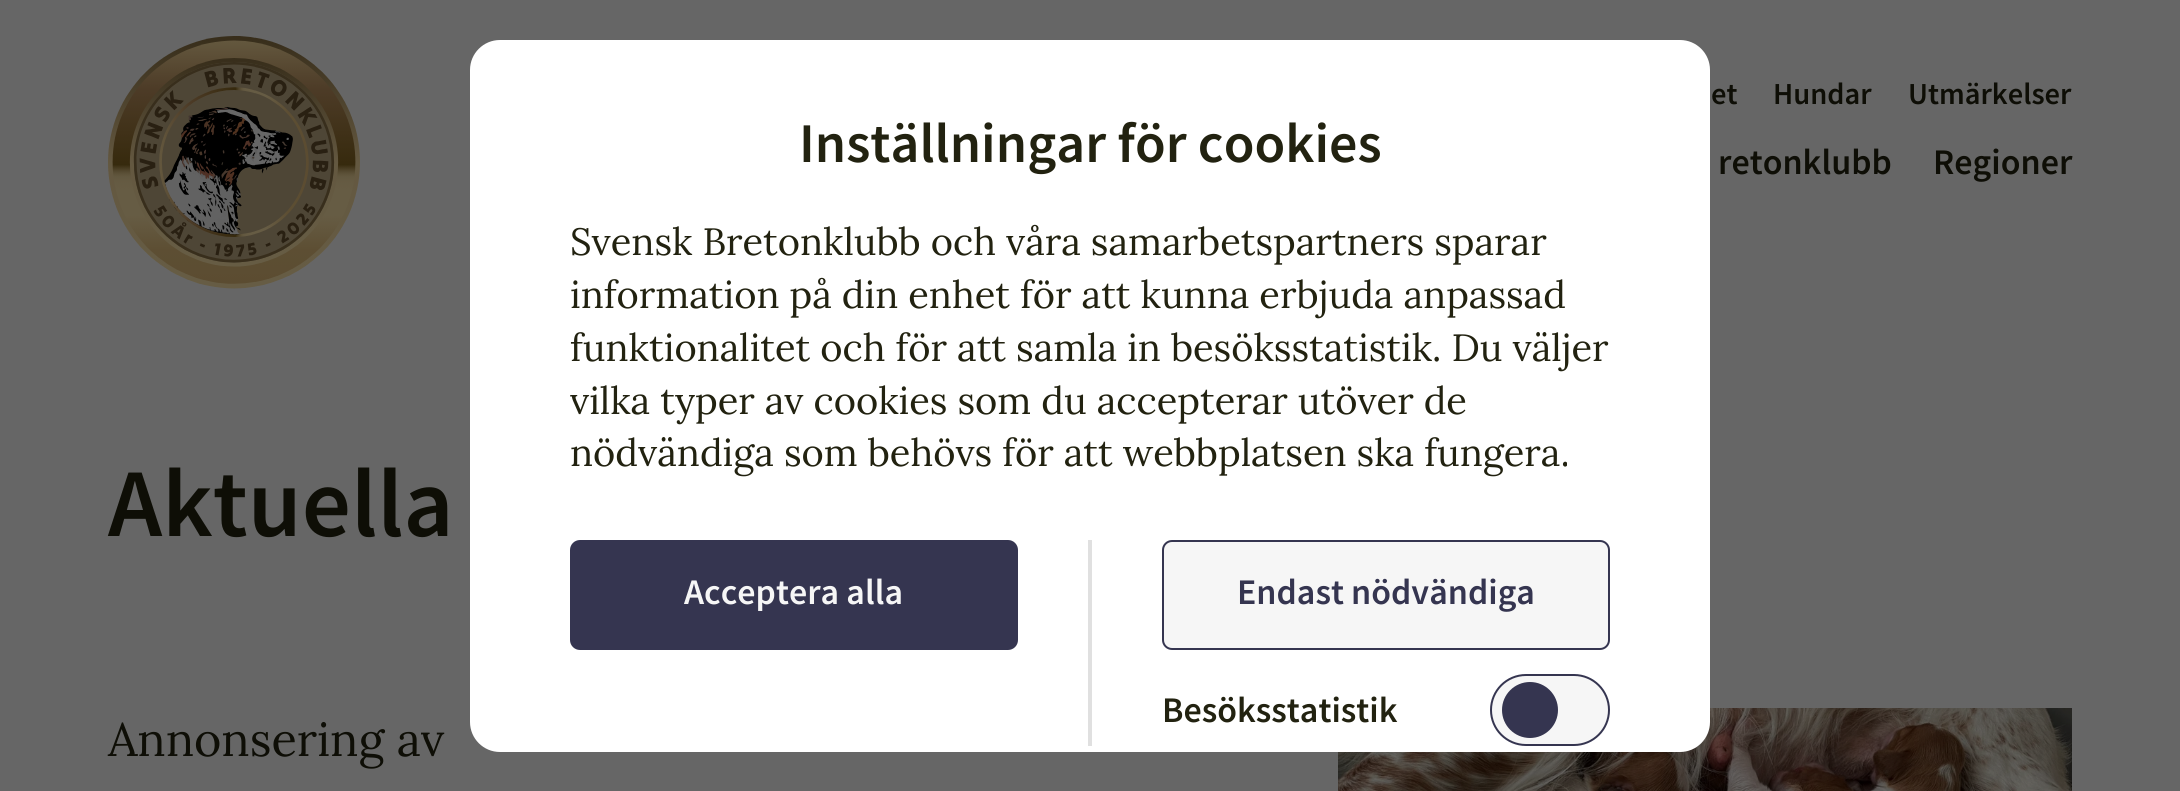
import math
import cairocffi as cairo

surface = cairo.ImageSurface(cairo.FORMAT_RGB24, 2180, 791)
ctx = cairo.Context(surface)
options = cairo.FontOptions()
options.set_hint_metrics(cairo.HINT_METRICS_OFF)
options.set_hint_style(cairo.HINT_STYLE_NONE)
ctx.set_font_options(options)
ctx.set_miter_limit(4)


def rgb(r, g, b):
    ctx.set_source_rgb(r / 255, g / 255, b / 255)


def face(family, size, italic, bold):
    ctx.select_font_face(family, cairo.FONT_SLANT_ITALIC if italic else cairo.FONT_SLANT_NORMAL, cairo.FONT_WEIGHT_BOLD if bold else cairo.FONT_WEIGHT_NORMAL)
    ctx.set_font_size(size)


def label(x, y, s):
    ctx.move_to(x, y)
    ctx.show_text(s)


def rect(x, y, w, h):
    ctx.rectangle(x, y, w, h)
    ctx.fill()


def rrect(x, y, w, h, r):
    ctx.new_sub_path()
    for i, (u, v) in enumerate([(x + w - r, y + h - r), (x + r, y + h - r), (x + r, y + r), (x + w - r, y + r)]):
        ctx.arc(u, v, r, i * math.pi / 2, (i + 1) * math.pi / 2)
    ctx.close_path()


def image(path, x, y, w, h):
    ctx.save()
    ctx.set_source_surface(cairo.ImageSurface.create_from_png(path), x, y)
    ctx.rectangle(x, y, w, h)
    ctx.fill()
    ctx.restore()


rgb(102, 102, 102)
ctx.paint()
face('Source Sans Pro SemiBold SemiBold', 97, 0, 0)
rgb(14, 14, 6)
label(108, 536, 'Aktuella')
face('Lora', 46.75, 0, 0)
label(108, 756, 'Annonsering av')
image('image0.png', 1338, 708, 734, 83)
rgb(255, 255, 255)
rrect(470, 40, 1240, 712, 30)
ctx.fill()
face('Source Sans Pro SemiBold SemiBold', 56, 0, 0)
rgb(34, 34, 16)
label(799, 162, 'Inställningar för cookies')
face('Lora', 38, 0, 0)
label(570, 255, 'Svensk Bretonklubb och våra samarbetspartners sparar')
label(570, 308, 'information på din enhet för att kunna erbjuda anpassad')
label(570, 361, 'funktionalitet och för att samla in besöksstatistik. Du väljer')
label(570, 414, 'vilka typer av cookies som du accepterar utöver de')
label(570, 466, 'nödvändiga som behövs för att webbplatsen ska fungera.')
rgb(224, 224, 224)
rect(1088, 540, 4, 206)
rgb(53, 53, 80)
rrect(571, 541, 446, 108, 9)
ctx.fill_preserve()
ctx.stroke()
face('Source Sans Pro SemiBold SemiBold', 36, 0, 0)
rgb(246, 246, 246)
label(684, 604, 'Acceptera alla')
rrect(1163, 541, 446, 108, 9)
ctx.fill_preserve()
rgb(53, 53, 80)
ctx.stroke()
label(1237, 604, 'Endast nödvändiga')
rgb(34, 34, 16)
label(1162, 722, 'Besöksstatistik')
rgb(246, 246, 246)
rrect(1491, 675, 118, 70, 35)
ctx.fill_preserve()
rgb(53, 53, 80)
ctx.stroke()
ctx.arc(1530, 710, 28, 0, 2 * math.pi)
ctx.fill()
image('image1.png', 108, 36, 252, 253)
face('Source Sans Pro SemiBold SemiBold', 30.5, 0, 0)
rgb(14, 14, 6)
label(1711, 104, 'et')
label(1773, 104, 'Hundar')
label(1908, 104, 'Utmärkelser')
face('Source Sans Pro SemiBold SemiBold', 36, 0, 0)
label(1718, 174, 'retonklubb')
label(1933, 174, 'Regioner')
surface.write_to_png('render.png')
